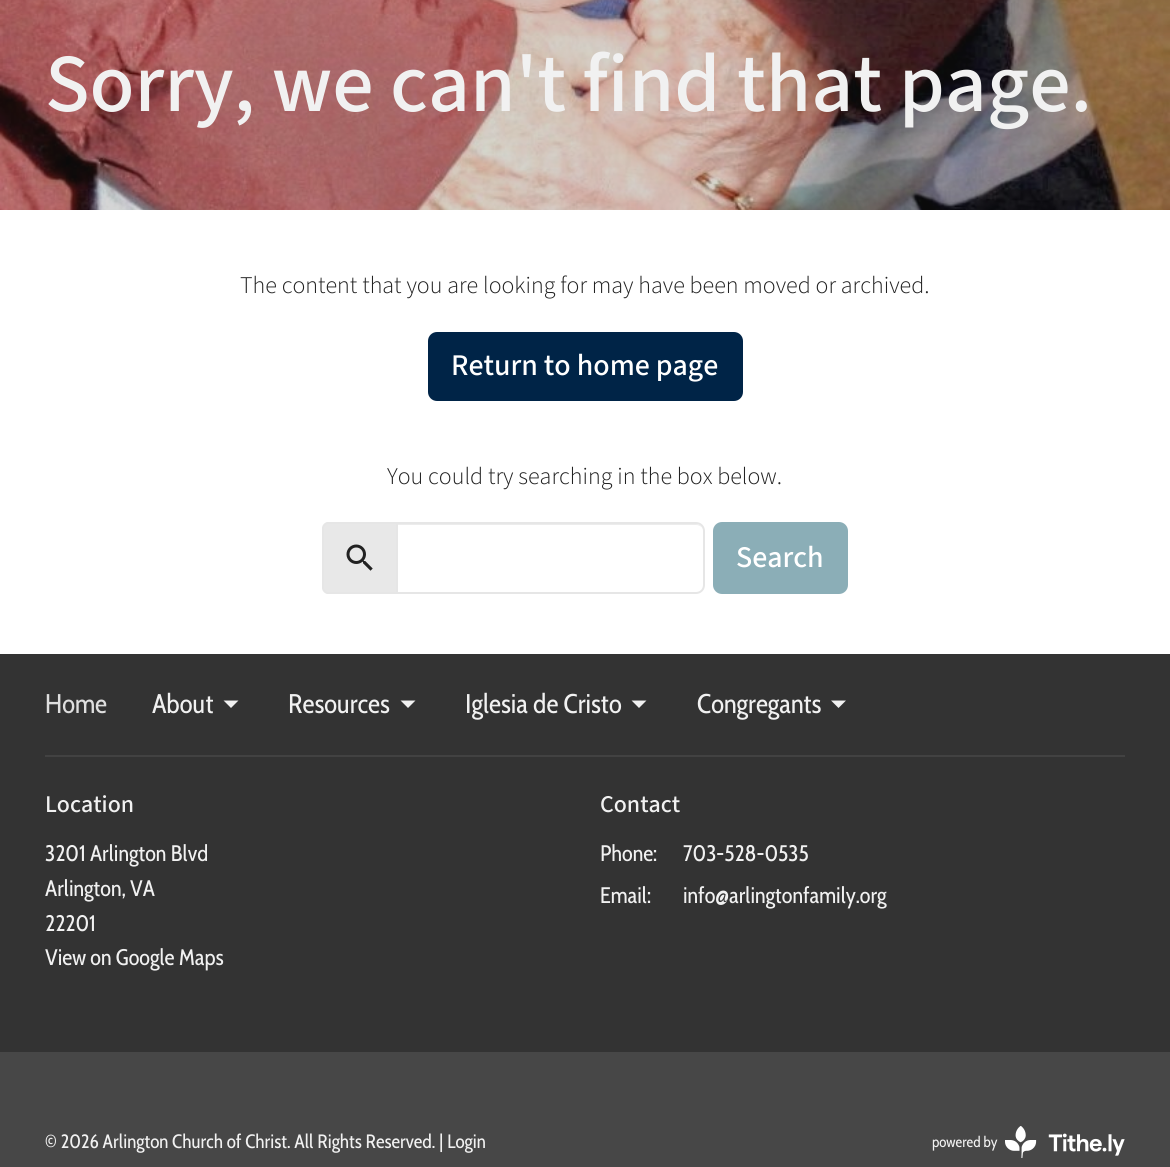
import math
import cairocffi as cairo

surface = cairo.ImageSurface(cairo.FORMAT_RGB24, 1170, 1167)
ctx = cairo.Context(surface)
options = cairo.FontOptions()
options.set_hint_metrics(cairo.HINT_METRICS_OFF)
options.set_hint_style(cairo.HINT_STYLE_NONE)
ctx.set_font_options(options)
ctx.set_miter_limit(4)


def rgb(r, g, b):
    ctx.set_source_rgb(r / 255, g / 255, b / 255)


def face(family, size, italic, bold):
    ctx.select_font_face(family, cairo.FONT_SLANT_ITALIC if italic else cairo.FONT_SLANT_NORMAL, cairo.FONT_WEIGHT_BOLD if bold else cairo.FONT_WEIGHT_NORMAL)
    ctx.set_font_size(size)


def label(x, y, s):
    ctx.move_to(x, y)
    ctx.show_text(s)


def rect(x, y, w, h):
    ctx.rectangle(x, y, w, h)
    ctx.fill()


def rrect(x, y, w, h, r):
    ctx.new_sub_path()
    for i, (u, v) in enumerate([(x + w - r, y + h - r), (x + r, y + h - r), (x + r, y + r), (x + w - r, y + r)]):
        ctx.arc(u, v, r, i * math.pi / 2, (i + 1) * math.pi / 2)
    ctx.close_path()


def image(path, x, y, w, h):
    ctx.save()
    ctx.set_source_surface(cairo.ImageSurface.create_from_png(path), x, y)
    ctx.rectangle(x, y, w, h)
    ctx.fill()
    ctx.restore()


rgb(255, 255, 255)
ctx.paint()
image('image0.png', 0, 0, 1170, 210)
face('Source Sans 3 Medium', 82.5, 0, 0)
rgb(241, 241, 241)
label(45, 111, 'Sorry, we can\'t find that page.')
face('Source Sans 3 Light', 24, 0, 0)
rgb(34, 34, 34)
label(240, 293, 'The content that you are looking for may have been moved or archived.')
rgb(0, 36, 71)
rrect(428, 332, 315, 69, 9)
ctx.fill()
face('Source Sans 3 Medium', 30, 0, 0)
rgb(255, 255, 255)
label(451, 375, 'Return to home page')
face('Source Sans 3 Light', 24, 0, 0)
rgb(34, 34, 34)
label(387, 484, 'You could try searching in the box below.')
rgb(232, 232, 232)
ctx.new_path()
ctx.move_to(329, 522)
ctx.line_to(396, 522)
ctx.line_to(396, 594)
ctx.line_to(329, 594)
ctx.curve_to(325.5, 594, 323, 591.5, 323, 588)
ctx.line_to(323, 528)
ctx.curve_to(323, 524.5, 325.5, 522, 329, 522)
ctx.close_path()
ctx.fill()
rgb(230, 230, 230)
ctx.set_fill_rule(cairo.FILL_RULE_EVEN_ODD)
ctx.new_path()
ctx.move_to(328, 522)
ctx.line_to(396, 522)
ctx.line_to(396, 594)
ctx.line_to(328, 594)
ctx.curve_to(325, 594, 322, 591, 322, 588)
ctx.line_to(322, 528)
ctx.curve_to(322, 525, 325, 522, 328, 522)
ctx.close_path()
ctx.move_to(328, 524)
ctx.line_to(396, 524)
ctx.line_to(396, 592)
ctx.line_to(328, 592)
ctx.curve_to(326, 592, 324, 590, 324, 588)
ctx.line_to(324, 528)
ctx.curve_to(324, 526, 326, 524, 328, 524)
ctx.close_path()
ctx.fill()
image('image1.png', 346, 544, 27, 27)
rgb(236, 236, 236)
ctx.set_fill_rule(cairo.FILL_RULE_WINDING)
ctx.new_path()
ctx.move_to(398, 525)
ctx.line_to(696, 525)
ctx.curve_to(700, 525, 704, 528, 704, 532)
ctx.curve_to(704, 528, 700, 524, 696, 524)
ctx.line_to(398, 524)
ctx.close_path()
ctx.fill()
ctx.new_path()
ctx.move_to(397, 523)
ctx.line_to(696, 523)
ctx.curve_to(700.5, 523, 704, 526.5, 704, 531)
ctx.line_to(704, 585)
ctx.curve_to(704, 589.5, 700.5, 593, 696, 593)
ctx.line_to(397, 593)
ctx.close_path()
rgb(230, 230, 230)
ctx.stroke()
rgb(139, 174, 183)
rrect(713, 522, 135, 72, 9)
ctx.fill()
face('Source Sans 3 Medium', 30, 0, 0)
rgb(255, 255, 255)
label(736, 567, 'Search')
rgb(51, 51, 51)
rect(0, 654, 1170, 398)
face('Cabin Condensed', 27, 0, 0)
rgb(222, 222, 222)
label(45, 713, 'Home')
rgb(241, 241, 241)
label(152, 713, 'About')
ctx.new_path()
ctx.move_to(223.5, 700.5)
ctx.line_to(231, 708)
ctx.line_to(238.5, 700.5)
ctx.close_path()
ctx.fill()
label(288, 713, 'Resources')
ctx.new_path()
ctx.move_to(400.5, 700.5)
ctx.line_to(408, 708)
ctx.line_to(415.5, 700.5)
ctx.close_path()
ctx.fill()
label(465, 713, 'Iglesia de Cristo')
ctx.new_path()
ctx.move_to(631.5, 700.5)
ctx.line_to(639, 708)
ctx.line_to(646.5, 700.5)
ctx.close_path()
ctx.fill()
label(697, 713, 'Congregants')
ctx.new_path()
ctx.move_to(831, 700.5)
ctx.line_to(838.5, 708)
ctx.line_to(846, 700.5)
ctx.close_path()
ctx.fill()
rgb(66, 66, 66)
rect(45, 755, 1080, 2)
face('Source Sans 3 Medium', 24, 0, 0)
rgb(241, 241, 241)
label(45, 812, 'Location')
face('Cabin Condensed', 22.5, 0, 0)
label(45, 861, '3201 Arlington Blvd')
label(45, 896, 'Arlington, VA')
label(45, 931, '22201')
label(45, 965, 'View on Google Maps')
face('Source Sans 3 Medium', 24, 0, 0)
label(600, 812, 'Contact')
face('Cabin Condensed', 22.5, 0, 0)
label(600, 861, 'Phone:')
label(683, 861, '703-528-0535')
label(600, 903, 'Email:')
label(683, 903, 'info@arlingtonfamily.org')
rgb(71, 71, 71)
rect(0, 1052, 1170, 115)
face('Cabin Condensed', 19.35, 0, 0)
rgb(241, 241, 241)
label(45, 1148, '© 2026 Arlington Church of Christ. All Rights Reserved. | Login')
face('Cabin Condensed', 15, 0, 0)
label(932, 1147, 'powered by')
image('image2.png', 1005, 1126, 120, 32)
surface.write_to_png('render.png')
